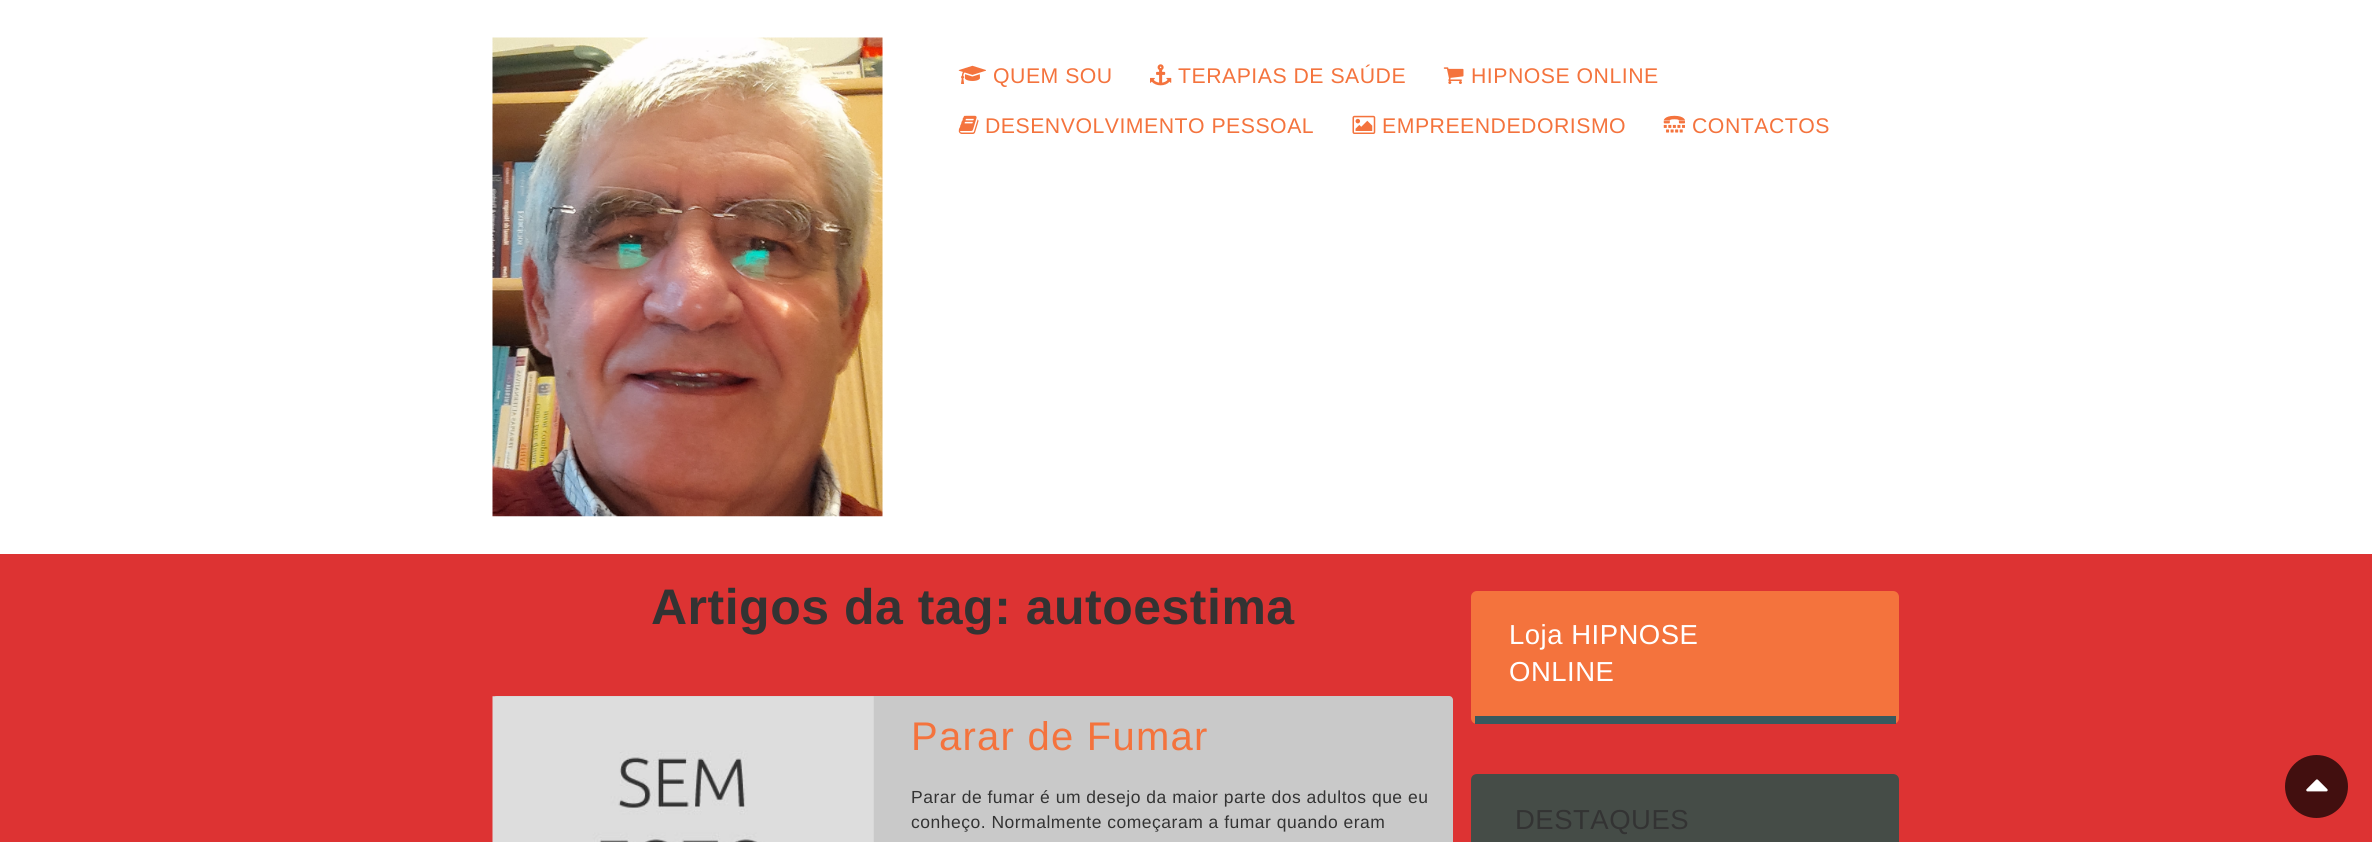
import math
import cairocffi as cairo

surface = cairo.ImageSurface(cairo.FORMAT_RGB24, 2372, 842)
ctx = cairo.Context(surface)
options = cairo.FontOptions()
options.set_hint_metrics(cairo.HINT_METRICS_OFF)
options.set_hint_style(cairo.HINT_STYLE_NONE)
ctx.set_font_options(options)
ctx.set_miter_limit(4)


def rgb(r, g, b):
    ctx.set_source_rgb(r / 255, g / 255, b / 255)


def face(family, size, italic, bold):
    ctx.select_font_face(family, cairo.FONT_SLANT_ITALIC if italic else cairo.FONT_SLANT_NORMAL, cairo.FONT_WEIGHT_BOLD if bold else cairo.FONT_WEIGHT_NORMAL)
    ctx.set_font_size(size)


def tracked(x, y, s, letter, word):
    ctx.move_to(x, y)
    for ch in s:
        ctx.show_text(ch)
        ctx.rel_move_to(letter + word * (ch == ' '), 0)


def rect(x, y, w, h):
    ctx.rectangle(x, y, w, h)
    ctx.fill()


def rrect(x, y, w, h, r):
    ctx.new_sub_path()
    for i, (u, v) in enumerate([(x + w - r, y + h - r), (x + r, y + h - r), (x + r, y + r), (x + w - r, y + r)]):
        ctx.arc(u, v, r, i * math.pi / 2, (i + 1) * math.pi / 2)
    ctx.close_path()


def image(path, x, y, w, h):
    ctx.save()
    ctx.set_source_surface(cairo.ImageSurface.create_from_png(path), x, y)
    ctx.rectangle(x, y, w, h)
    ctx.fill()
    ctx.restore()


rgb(221, 51, 51)
ctx.paint()
rgb(255, 255, 255)
rect(0, 0, 2372, 554)
image('image0.png', 492, 37, 391, 480)
image('image1.png', 958, 65, 28, 19)
face('Liberation Sans', 21.25, 0, 0)
rgb(244, 115, 61)
tracked(993, 83, 'QUEM SOU', 0.5, 0)
image('image2.png', 1150, 64, 22, 22)
tracked(1178, 83, 'TERAPIAS DE SAÚDE', 0.5, 0)
image('image3.png', 1443, 67, 21, 17)
tracked(1471, 83, 'HIPNOSE ONLINE', 0.5, 0)
image('image4.png', 958, 115, 21, 19)
tracked(985, 133, 'DESENVOLVIMENTO PESSOAL', 0.5, 0)
image('image5.png', 1352, 115, 24, 19)
tracked(1382, 133, 'EMPREENDEDORISMO', 0.5, 0)
image('image6.png', 1663, 115, 22, 18)
tracked(1692, 133, 'CONTACTOS', 0.5, 0)
face('Liberation Sans', 50, 0, 1)
rgb(51, 51, 51)
tracked(651, 624, 'Artigos da tag: autoestima', 0.5, 0)
rgb(201, 201, 201)
rrect(493, 696, 960, 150, 4)
ctx.fill()
image('image7.png', 492, 696, 382, 146)
face('Liberation Sans', 40, 0, 0)
rgb(244, 115, 61)
tracked(911, 750, 'Parar de Fumar', 1.25, 0)
face('Liberation Sans', 17.5, 0, 0)
rgb(51, 51, 51)
tracked(911, 803, 'Parar de fumar é um desejo da maior parte dos adultos que eu', 0.5, 0)
tracked(911, 828, 'conheço. Normalmente começaram a fumar quando eram', 0.5, 0)
rgb(244, 115, 61)
rrect(1471, 591, 428, 133, 6)
ctx.fill()
rgb(56, 89, 94)
rect(1475, 716, 421, 8)
face('Liberation Sans', 27.5, 0, 0)
rgb(255, 255, 255)
tracked(1509, 644, 'Loja HIPNOSE', 0.5, 0)
tracked(1509, 681, 'ONLINE', 0.5, 0)
rgb(69, 76, 71)
ctx.new_path()
ctx.move_to(1477, 774)
ctx.line_to(1893, 774)
ctx.curve_to(1896.5, 774, 1899, 776.5, 1899, 780)
ctx.line_to(1899, 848)
ctx.line_to(1471, 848)
ctx.line_to(1471, 780)
ctx.curve_to(1471, 776.5, 1473.5, 774, 1477, 774)
ctx.close_path()
ctx.fill()
rgb(51, 51, 51)
tracked(1515, 829, 'DESTAQUES', 0.5, 0)
rgb(66, 15, 15)
ctx.new_path()
ctx.arc(2316.5, 786.5, 31.5, 0, 2 * math.pi)
ctx.fill()
image('image8.png', 2306, 779, 22, 13)
surface.write_to_png('render.png')
